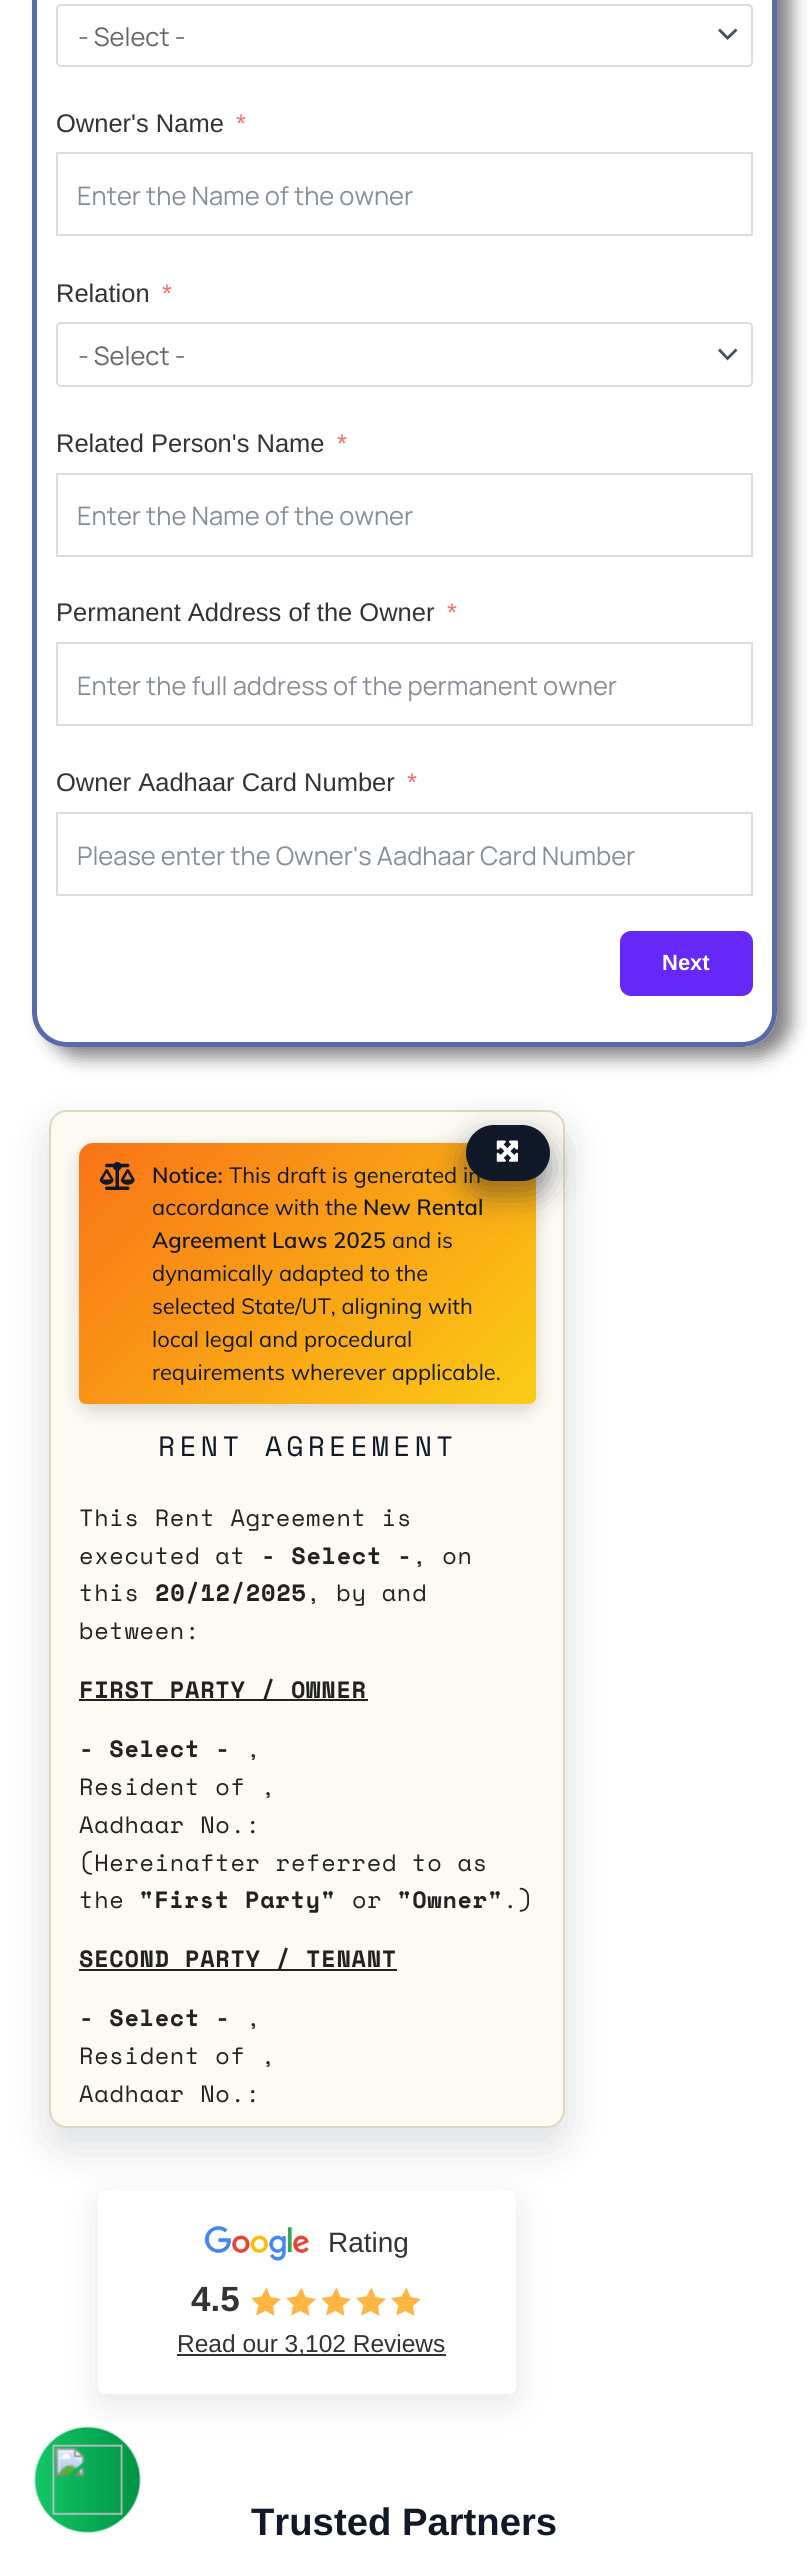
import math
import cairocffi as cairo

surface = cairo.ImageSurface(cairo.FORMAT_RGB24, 808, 2566)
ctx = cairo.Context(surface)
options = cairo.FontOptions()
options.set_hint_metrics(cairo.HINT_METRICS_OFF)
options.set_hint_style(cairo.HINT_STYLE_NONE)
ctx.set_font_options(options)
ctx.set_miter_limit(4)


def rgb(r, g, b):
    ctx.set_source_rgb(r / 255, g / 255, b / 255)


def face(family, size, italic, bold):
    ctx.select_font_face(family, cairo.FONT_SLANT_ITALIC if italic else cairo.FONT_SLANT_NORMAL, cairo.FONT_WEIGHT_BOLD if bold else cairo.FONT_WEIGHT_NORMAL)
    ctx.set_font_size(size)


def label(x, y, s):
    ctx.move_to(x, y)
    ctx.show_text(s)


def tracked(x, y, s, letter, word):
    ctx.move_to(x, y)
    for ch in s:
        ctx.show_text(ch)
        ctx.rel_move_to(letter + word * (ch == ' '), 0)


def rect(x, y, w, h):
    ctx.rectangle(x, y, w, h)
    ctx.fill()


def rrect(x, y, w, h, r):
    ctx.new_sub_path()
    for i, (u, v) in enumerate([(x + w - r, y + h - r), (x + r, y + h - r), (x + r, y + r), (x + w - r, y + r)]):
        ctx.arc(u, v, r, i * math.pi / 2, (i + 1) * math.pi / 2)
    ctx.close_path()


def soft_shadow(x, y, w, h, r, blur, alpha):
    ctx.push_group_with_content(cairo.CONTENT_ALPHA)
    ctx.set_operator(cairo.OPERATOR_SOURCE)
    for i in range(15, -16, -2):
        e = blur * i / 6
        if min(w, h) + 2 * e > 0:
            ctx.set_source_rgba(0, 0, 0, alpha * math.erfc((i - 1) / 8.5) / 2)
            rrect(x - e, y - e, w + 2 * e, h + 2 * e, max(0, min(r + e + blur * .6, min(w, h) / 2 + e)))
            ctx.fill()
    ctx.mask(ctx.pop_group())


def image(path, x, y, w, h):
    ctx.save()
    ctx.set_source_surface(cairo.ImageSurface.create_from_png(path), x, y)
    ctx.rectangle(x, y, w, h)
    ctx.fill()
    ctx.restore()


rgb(255, 255, 255)
ctx.paint()
ctx.save()
ctx.set_fill_rule(cairo.FILL_RULE_EVEN_ODD)
ctx.new_path()
ctx.move_to(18, 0)
ctx.line_to(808, 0)
ctx.line_to(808, 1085)
ctx.line_to(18, 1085)
ctx.close_path()
ctx.move_to(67, -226)
ctx.line_to(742, -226)
ctx.curve_to(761.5, -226, 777, -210.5, 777, -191)
ctx.line_to(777, 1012)
ctx.curve_to(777, 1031.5, 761.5, 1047, 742, 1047)
ctx.line_to(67, 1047)
ctx.curve_to(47.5, 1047, 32, 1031.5, 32, 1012)
ctx.line_to(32, -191)
ctx.curve_to(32, -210.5, 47.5, -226, 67, -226)
ctx.close_path()
ctx.clip()
rgb(0, 0, 0)
soft_shadow(46, -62, 745, 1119, 35, 9, 0.5)
ctx.restore()
rrect(34.5, -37.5, 740, 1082, 32.5)
rgb(88, 107, 168)
ctx.set_line_width(5)
ctx.stroke()
rgb(69, 79, 94)
ctx.new_path()
ctx.move_to(718, 30.5)
ctx.line_to(727.5, 40)
ctx.line_to(737.5, 30.5)
ctx.line_to(735.5, 28.5)
ctx.line_to(727.5, 36)
ctx.line_to(720, 28.5)
ctx.close_path()
ctx.fill()
rrect(57, 5, 695, 61, 4)
rgb(221, 221, 221)
ctx.set_line_width(2)
ctx.stroke()
face('Manrope ExtraLight', 25.5, 0, 0)
rgb(102, 102, 102)
label(78, 46, '- Select -')
face('Liberation Sans', 25.5, 0, 0)
rgb(51, 51, 51)
label(56, 132, 'Owner\'s Name')
rgb(245, 108, 108)
label(236, 132, '*')
ctx.rectangle(57, 153, 695, 82)
rgb(221, 221, 221)
ctx.stroke()
face('Manrope ExtraLight', 25.5, 0, 0)
rgb(134, 142, 150)
label(77, 205, 'Enter the Name of the owner')
face('Liberation Sans', 25.5, 0, 0)
rgb(51, 51, 51)
label(56, 302, 'Relation')
rgb(245, 108, 108)
label(162, 302, '*')
rgb(69, 79, 94)
ctx.new_path()
ctx.move_to(718, 350.5)
ctx.line_to(727.5, 360.5)
ctx.line_to(737.5, 350.5)
ctx.line_to(735.5, 348.5)
ctx.line_to(727.5, 356.5)
ctx.line_to(720, 348.5)
ctx.close_path()
ctx.fill()
rrect(57, 323, 695, 63, 4)
rgb(221, 221, 221)
ctx.stroke()
face('Manrope ExtraLight', 25.5, 0, 0)
rgb(102, 102, 102)
label(78, 365, '- Select -')
face('Liberation Sans', 25.5, 0, 0)
rgb(51, 51, 51)
label(56, 452, 'Related Person\'s Name')
rgb(245, 108, 108)
label(337, 452, '*')
ctx.rectangle(57, 474, 695, 82)
rgb(221, 221, 221)
ctx.stroke()
face('Manrope ExtraLight', 25.5, 0, 0)
rgb(134, 142, 150)
label(77, 525, 'Enter the Name of the owner')
face('Liberation Sans', 25.5, 0, 0)
rgb(51, 51, 51)
label(56, 621, 'Permanent Address of the Owner')
rgb(245, 108, 108)
label(447, 621, '*')
ctx.rectangle(57, 643, 695, 82)
rgb(221, 221, 221)
ctx.stroke()
face('Manrope ExtraLight', 25.5, 0, 0)
rgb(134, 142, 150)
label(77, 695, 'Enter the full address of the permanent owner')
face('Liberation Sans', 25.5, 0, 0)
rgb(51, 51, 51)
label(56, 791, 'Owner Aadhaar Card Number')
rgb(245, 108, 108)
label(407, 791, '*')
ctx.rectangle(57, 813, 695, 82)
rgb(221, 221, 221)
ctx.stroke()
face('Manrope ExtraLight', 25.5, 0, 0)
rgb(134, 142, 150)
label(77, 865, 'Please enter the Owner\'s Aadhaar Card Number')
rgb(101, 40, 247)
rrect(620, 931, 133, 65, 11)
ctx.fill()
face('Liberation Sans', 22, 0, 1)
rgb(255, 255, 255)
label(662, 970, 'Next')
rgb(15, 23, 42)
soft_shadow(49, 1127, 516, 1019, 18, 22, 0.15)
rgb(253, 250, 243)
rrect(50, 1111, 514, 1016, 17)
ctx.fill_preserve()
rgb(224, 215, 194)
ctx.stroke()
rgb(0, 0, 0)
soft_shadow(79, 1150, 457, 261, 14, 9, 0.15)
gradient = cairo.LinearGradient(128, 1094, 487, 1453)
gradient.add_color_stop_rgba(0, 0.976, 0.451, 0.086, 1)
gradient.add_color_stop_rgba(1, 0.98, 0.8, 0.082, 1)
ctx.set_source(gradient)
ctx.new_path()
ctx.move_to(93, 1143)
ctx.line_to(522, 1143)
ctx.curve_to(529.5, 1143, 536, 1149.5, 536, 1157)
ctx.line_to(536, 1397)
ctx.curve_to(536, 1401, 533, 1404, 529, 1404)
ctx.line_to(86, 1404)
ctx.curve_to(82, 1404, 79, 1401, 79, 1397)
ctx.line_to(79, 1157)
ctx.curve_to(79, 1149.5, 85.5, 1143, 93, 1143)
ctx.close_path()
ctx.fill()
rgb(15, 23, 42)
soft_shadow(466, 1139, 84, 56, 28, 16, 0.45)
rgb(17, 24, 39)
rrect(466, 1125, 84, 56, 28)
ctx.fill()
image('image0.png', 496, 1140, 22, 22)
image('image1.png', 99, 1162, 36, 28)
face('Muli SemiBold', 21.9, 0, 0)
label(152, 1183, 'Notice:')
face('Muli', 21.9, 0, 0)
label(229, 1183, 'This draft is generated in')
label(152, 1215, 'accordance with the')
face('Muli SemiBold', 21.9, 0, 0)
label(363, 1215, 'New Rental')
label(152, 1248, 'Agreement Laws 2025')
face('Muli', 21.9, 0, 0)
label(392, 1248, 'and is')
label(152, 1281, 'dynamically adapted to the')
label(152, 1314, 'selected State/UT, aligning with')
label(152, 1347, 'local legal and procedural')
label(152, 1380, 'requirements wherever applicable.')
face('Space Mono', 28, 0, 0)
tracked(158, 1456, 'RENT AGREEMENT', 4.25, 0)
face('Space Mono', 23.6, 0, 0)
rgb(34, 34, 34)
tracked(79, 1526, 'This Rent Agreement is', 0.7, 0)
tracked(79, 1564, 'executed at', 0.7, 0)
face('Space Mono', 23.6, 0, 1)
tracked(261, 1564, '- Select -', 0.7, 0)
face('Space Mono', 23.6, 0, 0)
tracked(412, 1564, ', on', 0.7, 0)
tracked(79, 1601, 'this', 0.7, 0)
face('Space Mono', 23.6, 0, 1)
tracked(155, 1601, '20/12/2025', 0.7, 0)
face('Space Mono', 23.6, 0, 0)
tracked(306, 1601, ', by and', 0.7, 0)
tracked(79, 1639, 'between:', 0.7, 0)
rect(79, 1699, 289, 2)
face('Space Mono', 23.6, 0, 1)
tracked(79, 1698, 'FIRST PARTY / OWNER', 0.7, 0)
tracked(79, 1757, '- Select -', 0.7, 0)
face('Space Mono', 23.6, 0, 0)
tracked(246, 1757, ',', 0.7, 0)
tracked(79, 1795, 'Resident of ,', 0.7, 0)
tracked(79, 1833, 'Aadhaar No.:', 0.7, 0)
tracked(79, 1871, '(Hereinafter referred to as', 0.7, 0)
tracked(79, 1908, 'the', 0.7, 0)
face('Space Mono', 23.6, 0, 1)
tracked(139, 1908, '"First Party"', 0.7, 0)
face('Space Mono', 23.6, 0, 0)
tracked(352, 1908, 'or', 0.7, 0)
face('Space Mono', 23.6, 0, 1)
tracked(397, 1908, '"Owner"', 0.7, 0)
face('Space Mono', 23.6, 0, 0)
tracked(503, 1908, '.)', 0.7, 0)
rect(79, 1969, 318, 2)
face('Space Mono', 23.6, 0, 1)
tracked(79, 1967, 'SECOND PARTY / TENANT', 0.7, 0)
tracked(79, 2026, '- Select -', 0.7, 0)
face('Space Mono', 23.6, 0, 0)
tracked(246, 2026, ',', 0.7, 0)
tracked(79, 2064, 'Resident of ,', 0.7, 0)
tracked(79, 2102, 'Aadhaar No.:', 0.7, 0)
rgb(0, 0, 0)
soft_shadow(98, 2200, 418, 203, 7, 17.5, 0.1)
rgb(255, 255, 255)
rrect(98, 2191, 418, 203, 7)
ctx.fill()
image('image2.png', 204, 2226, 105, 35)
face('Liberation Sans', 28, 0, 0)
rgb(51, 51, 51)
label(328, 2252, 'Rating')
face('Liberation Sans', 35, 0, 1)
label(191, 2311, '4.5')
rgb(255, 181, 66)
ctx.new_path()
ctx.move_to(265.5, 2311)
ctx.line_to(256, 2315.5)
ctx.line_to(258.5, 2305.5)
ctx.line_to(251, 2298)
ctx.line_to(261.5, 2296.5)
ctx.line_to(266.5, 2287.5)
ctx.line_to(270.5, 2297)
ctx.line_to(281, 2299)
ctx.line_to(273, 2306)
ctx.line_to(274.5, 2316)
ctx.close_path()
ctx.fill()
ctx.new_path()
ctx.move_to(300.5, 2311)
ctx.line_to(291, 2315.5)
ctx.line_to(293.5, 2305.5)
ctx.line_to(286, 2298)
ctx.line_to(296.5, 2296.5)
ctx.line_to(301.5, 2287.5)
ctx.line_to(305.5, 2297)
ctx.line_to(316, 2299)
ctx.line_to(308, 2306)
ctx.line_to(309.5, 2316)
ctx.close_path()
ctx.fill()
ctx.new_path()
ctx.move_to(335.5, 2311)
ctx.line_to(326, 2315.5)
ctx.line_to(328.5, 2305.5)
ctx.line_to(321, 2298)
ctx.line_to(331.5, 2296.5)
ctx.line_to(336.5, 2287.5)
ctx.line_to(340.5, 2297)
ctx.line_to(351, 2299)
ctx.line_to(343, 2306)
ctx.line_to(344.5, 2316)
ctx.close_path()
ctx.fill()
ctx.new_path()
ctx.move_to(370.5, 2311)
ctx.line_to(361, 2315.5)
ctx.line_to(363.5, 2305.5)
ctx.line_to(356, 2298)
ctx.line_to(366.5, 2296.5)
ctx.line_to(371.5, 2287.5)
ctx.line_to(375.5, 2297)
ctx.line_to(386, 2299)
ctx.line_to(378, 2306)
ctx.line_to(379.5, 2316)
ctx.close_path()
ctx.fill()
ctx.new_path()
ctx.move_to(405.5, 2311)
ctx.line_to(396, 2315.5)
ctx.line_to(398.5, 2305.5)
ctx.line_to(391, 2298)
ctx.line_to(401.5, 2296.5)
ctx.line_to(406.5, 2287.5)
ctx.line_to(410.5, 2297)
ctx.line_to(421, 2299)
ctx.line_to(413, 2306)
ctx.line_to(414.5, 2316)
ctx.close_path()
ctx.fill()
rgb(51, 51, 51)
rect(177, 2354, 269, 2)
face('Liberation Sans', 24.5, 0, 0)
label(177, 2352, 'Read our 3,102 Reviews')
face('Liberation Sans', 38.25, 0, 1)
rgb(17, 24, 39)
label(251, 2535, 'Trusted Partners')
image('image3.png', 34, 2426, 107, 107)
surface.write_to_png('render.png')
